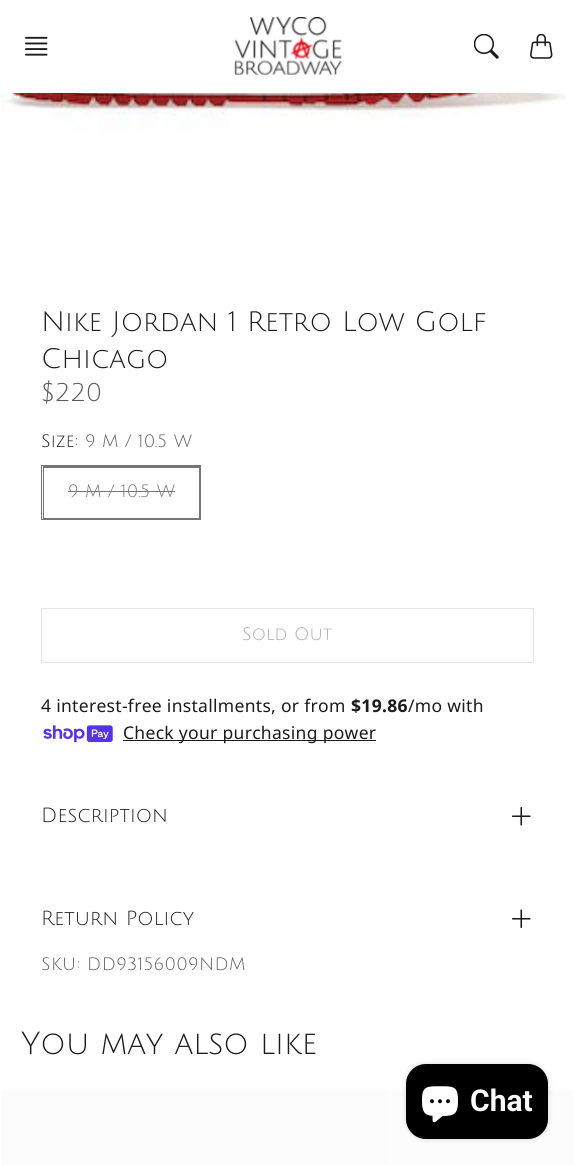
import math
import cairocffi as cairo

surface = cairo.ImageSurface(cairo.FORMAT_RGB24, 575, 1165)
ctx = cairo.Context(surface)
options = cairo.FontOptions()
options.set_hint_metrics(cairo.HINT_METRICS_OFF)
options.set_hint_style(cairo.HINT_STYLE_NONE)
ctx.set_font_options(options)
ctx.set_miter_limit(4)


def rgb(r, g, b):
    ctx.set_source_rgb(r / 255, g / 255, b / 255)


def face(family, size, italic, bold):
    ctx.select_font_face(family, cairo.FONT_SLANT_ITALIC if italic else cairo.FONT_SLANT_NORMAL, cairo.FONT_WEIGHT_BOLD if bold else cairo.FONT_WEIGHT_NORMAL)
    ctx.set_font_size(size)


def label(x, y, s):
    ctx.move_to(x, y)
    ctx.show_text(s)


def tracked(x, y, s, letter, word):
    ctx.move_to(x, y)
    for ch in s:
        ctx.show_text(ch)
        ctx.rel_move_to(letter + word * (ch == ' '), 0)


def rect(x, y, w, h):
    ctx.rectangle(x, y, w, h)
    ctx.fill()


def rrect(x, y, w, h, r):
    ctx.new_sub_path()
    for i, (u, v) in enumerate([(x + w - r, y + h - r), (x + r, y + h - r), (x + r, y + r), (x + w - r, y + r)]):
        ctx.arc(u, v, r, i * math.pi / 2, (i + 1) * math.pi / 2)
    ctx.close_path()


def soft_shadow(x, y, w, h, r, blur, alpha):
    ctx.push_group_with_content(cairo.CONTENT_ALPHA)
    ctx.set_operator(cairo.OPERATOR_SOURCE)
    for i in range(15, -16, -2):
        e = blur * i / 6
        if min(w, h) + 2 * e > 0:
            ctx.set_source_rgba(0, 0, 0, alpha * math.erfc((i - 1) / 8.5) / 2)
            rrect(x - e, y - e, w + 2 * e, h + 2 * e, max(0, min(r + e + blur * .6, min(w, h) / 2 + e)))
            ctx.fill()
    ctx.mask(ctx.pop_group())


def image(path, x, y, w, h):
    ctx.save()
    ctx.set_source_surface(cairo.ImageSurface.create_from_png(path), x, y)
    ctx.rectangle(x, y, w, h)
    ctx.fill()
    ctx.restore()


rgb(255, 255, 255)
ctx.paint()
image('image0.png', 25, 36, 23, 20)
image('image1.png', 234, 17, 108, 58)
image('image2.png', 474, 34, 25, 25)
image('image3.png', 530, 34, 23, 25)
image('image4.png', 1, 93, 573, 39)
face('Julius Sans One', 27.5, 0, 0)
rgb(28, 27, 27)
label(41, 331, 'Nike Jordan 1 Retro Low Golf')
label(41, 368, 'Chicago')
face('Julius Sans One', 25, 0, 0)
rgb(93, 90, 90)
label(41, 401, '$220')
face('Julius Sans One', 17.5, 0, 0)
rgb(28, 27, 27)
tracked(41, 447, 'Size:', 0.1, 0)
rgb(93, 90, 90)
tracked(85, 447, '9 M / 10.5 W', 0.1, 0)
ctx.save()
ctx.rectangle(43, 466, 157, 53)
ctx.clip()
rgb(119, 118, 118)
ctx.set_fill_rule(cairo.FILL_RULE_EVEN_ODD)
ctx.new_path()
ctx.move_to(-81, 342)
ctx.line_to(324, 342)
ctx.line_to(324, 642)
ctx.line_to(-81, 642)
ctx.close_path()
ctx.move_to(41, 465)
ctx.line_to(199, 465)
ctx.line_to(199, 518)
ctx.line_to(41, 518)
ctx.close_path()
ctx.fill()
ctx.new_path()
ctx.move_to(-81, 342)
ctx.line_to(324, 342)
ctx.line_to(324, 642)
ctx.line_to(-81, 642)
ctx.close_path()
ctx.move_to(44, 468)
ctx.line_to(201, 468)
ctx.line_to(201, 520)
ctx.line_to(44, 520)
ctx.close_path()
ctx.fill()
ctx.restore()
ctx.rectangle(41.5, 465.5, 159, 54)
rgb(119, 118, 118)
ctx.set_line_width(1)
ctx.stroke()
tracked(68, 497, '9 M / 10.5 W', 0.1, 0)
rect(68, 491, 107, 1)
ctx.rectangle(41.5, 608.5, 492, 54)
rgb(228, 228, 228)
ctx.stroke()
rgb(169, 168, 168)
tracked(242, 640, 'Sold Out', 0.1, 0)
face('Noto Sans', 17.5, 0, 0)
rgb(28, 27, 27)
tracked(41, 712, '4 interest-free installments, or from', 0.3, 0)
face('Noto Sans', 17.5, 0, 1)
tracked(351, 712, '$19.86', 0.3, 0)
face('Noto Sans', 17.5, 0, 0)
tracked(408, 712, '/mo with', 0.3, 0)
image('image5.png', 43, 725, 70, 18)
rect(123, 740, 253, 1)
tracked(123, 739, 'Check your purchasing power', 0.3, 0)
face('Julius Sans One', 20, 0, 0)
tracked(41, 822, 'Description', 0.1, 0)
image('image6.png', 511, 806, 20, 20)
tracked(41, 925, 'Return Policy', 0.1, 0)
image('image7.png', 511, 909, 20, 20)
face('Julius Sans One', 17.5, 0, 0)
rgb(93, 90, 90)
tracked(41, 970, 'SKU: DD93156009NDM', 0.3, 0)
face('Julius Sans One', 31.25, 0, 0)
rgb(28, 27, 27)
label(21, 1054, 'You may also like')
rgb(252, 252, 252)
rect(1, 1090, 389, 75)
rect(391, 1090, 183, 75)
rgb(0, 0, 0)
soft_shadow(406, 1064, 142, 75, 20, 3, 0.15)
rgb(0, 0, 0)
rrect(406, 1064, 142, 75, 20)
ctx.fill()
image('image8.png', 422, 1086, 36, 37)
face('Roboto', 30, 0, 1)
rgb(255, 255, 255)
label(470, 1111, 'Chat')
surface.write_to_png('render.png')
